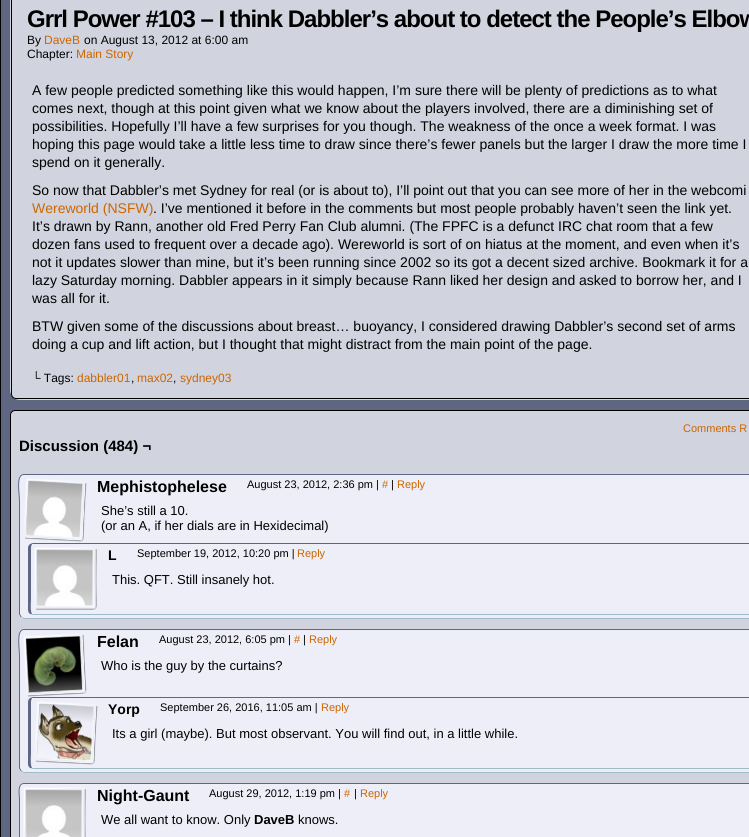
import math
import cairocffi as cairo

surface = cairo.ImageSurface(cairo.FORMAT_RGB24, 749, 837)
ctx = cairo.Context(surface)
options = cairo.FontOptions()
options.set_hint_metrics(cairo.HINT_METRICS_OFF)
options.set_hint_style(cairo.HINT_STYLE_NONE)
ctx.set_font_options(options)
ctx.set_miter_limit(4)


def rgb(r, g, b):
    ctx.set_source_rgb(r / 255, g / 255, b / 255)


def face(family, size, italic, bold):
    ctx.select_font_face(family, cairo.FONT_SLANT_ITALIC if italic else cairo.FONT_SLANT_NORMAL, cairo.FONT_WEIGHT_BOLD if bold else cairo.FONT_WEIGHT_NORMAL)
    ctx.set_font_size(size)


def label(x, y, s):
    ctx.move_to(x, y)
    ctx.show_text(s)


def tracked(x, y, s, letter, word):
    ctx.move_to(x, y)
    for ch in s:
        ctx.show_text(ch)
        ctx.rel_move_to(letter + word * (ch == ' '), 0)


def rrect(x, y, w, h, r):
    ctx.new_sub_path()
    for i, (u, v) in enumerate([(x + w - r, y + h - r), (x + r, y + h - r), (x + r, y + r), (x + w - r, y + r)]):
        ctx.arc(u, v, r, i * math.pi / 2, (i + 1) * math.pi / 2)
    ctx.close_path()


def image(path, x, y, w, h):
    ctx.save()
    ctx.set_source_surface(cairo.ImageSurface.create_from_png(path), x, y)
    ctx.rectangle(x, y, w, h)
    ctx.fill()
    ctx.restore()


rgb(94, 102, 129)
ctx.paint()
ctx.rectangle(0.5, -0.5, 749, 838)
rgb(0, 0, 0)
ctx.set_line_width(1)
ctx.stroke()
rgb(209, 211, 223)
rrect(10, -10, 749, 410, 10)
ctx.fill()
rrect(11.5, -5.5, 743, 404, 4.5)
ctx.fill_preserve()
rgb(0, 0, 0)
ctx.stroke()
face('Liberation Sans', 24, 0, 1)
tracked(27, 27, 'Grrl Power #103 – I think Dabbler’s about to detect the People’s Elbow', -1, 0)
face('Liberation Sans', 12, 0, 0)
label(27, 44, 'By')
rgb(204, 102, 0)
label(44, 44, 'DaveB')
rgb(0, 0, 0)
label(84, 44, 'on August 13, 2012 at 6:00 am')
label(27, 58, 'Chapter:')
rgb(204, 102, 0)
label(76, 58, 'Main Story')
face('Liberation Sans', 14, 0, 0)
rgb(0, 0, 0)
label(32, 95, 'A few people predicted something like this would happen, I’m sure there will be plenty of predictions as to what')
label(32, 113, 'comes next, though at this point given what we know about the players involved, there are a diminishing set of')
label(32, 131, 'possibilities. Hopefully I’ll have a few surprises for you though. The weakness of the once a week format. I was')
label(32, 149, 'hoping this page would take a little less time to draw since there’s fewer panels but the larger I draw the more time I')
label(32, 167, 'spend on it generally.')
label(32, 195, 'So now that Dabbler’s met Sydney for real (or is about to), I’ll point out that you can see more of her in the webcomi')
rgb(204, 102, 0)
label(32, 213, 'Wereworld (NSFW)')
rgb(0, 0, 0)
label(153, 213, '. I’ve mentioned it before in the comments but most people probably haven’t seen the link yet.')
label(32, 231, 'It’s drawn by Rann, another old Fred Perry Fan Club alumni. (The FPFC is a defunct IRC chat room that a few')
label(32, 249, 'dozen fans used to frequent over a decade ago). Wereworld is sort of on hiatus at the moment, and even when it’s')
label(32, 267, 'not it updates slower than mine, but it’s been running since 2002 so its got a decent sized archive. Bookmark it for a')
label(32, 285, 'lazy Saturday morning. Dabbler appears in it simply because Rann liked her design and asked to borrow her, and I')
label(32, 303, 'was all for it.')
label(32, 331, 'BTW given some of the discussions about breast… buoyancy, I considered drawing Dabbler’s second set of arms')
label(32, 349, 'doing a cup and lift action, but I thought that might distract from the main point of the page.')
face('Liberation Sans', 12, 0, 0)
label(32, 382, '└ Tags:')
rgb(204, 102, 0)
label(77, 382, 'dabbler01')
rgb(0, 0, 0)
label(131, 382, ',')
rgb(204, 102, 0)
label(137, 382, 'max02')
rgb(0, 0, 0)
label(173, 382, ',')
rgb(204, 102, 0)
label(180, 382, 'sydney03')
rgb(209, 211, 223)
rrect(10.5, 410.5, 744, 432, 4.5)
ctx.fill_preserve()
rgb(0, 0, 0)
ctx.stroke()
face('Liberation Sans', 11, 0, 0)
rgb(204, 102, 0)
label(683, 432, 'Comments R')
face('Liberation Sans', 15, 0, 1)
rgb(0, 0, 0)
label(19, 451, 'Discussion (484) ¬')
rgb(238, 238, 248)
rrect(19, 474, 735, 145, 5)
ctx.fill()
ctx.new_path()
ctx.move_to(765, 476)
ctx.line_to(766.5, 479)
ctx.line_to(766.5, 591.5)
ctx.curve_to(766.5, 600.5, 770.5, 618.5, 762, 618.5)
ctx.line_to(24, 618.5)
ctx.line_to(21, 617)
rgb(159, 187, 201)
ctx.stroke()
ctx.new_path()
ctx.move_to(21, 617)
ctx.line_to(19.5, 614)
ctx.line_to(19.5, 501.5)
ctx.curve_to(19.5, 492.5, 15.5, 474.5, 24, 474.5)
ctx.line_to(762, 474.5)
ctx.line_to(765, 476)
rgb(94, 102, 129)
ctx.stroke()
image('image0.png', 23, 478, 64, 64)
face('Liberation Sans', 16, 0, 1)
rgb(0, 0, 0)
label(97, 492, 'Mephistophelese')
face('Liberation Sans', 11, 0, 0)
label(247, 488, 'August 23, 2012, 2:36 pm |')
rgb(204, 102, 0)
label(382, 488, '#')
rgb(0, 0, 0)
label(391, 488, '|')
rgb(204, 102, 0)
label(397, 488, 'Reply')
face('Liberation Sans', 13, 0, 0)
rgb(0, 0, 0)
label(101, 515, 'She’s still a 10.')
label(101, 530, '(or an A, if her dials are in Hexidecimal)')
rgb(94, 102, 129)
ctx.new_path()
ctx.move_to(33, 543)
ctx.line_to(30, 544)
ctx.line_to(32, 544)
ctx.line_to(33, 544)
ctx.line_to(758, 544)
ctx.line_to(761, 545)
ctx.line_to(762, 544)
ctx.curve_to(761, 544, 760, 543, 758, 543)
ctx.close_path()
ctx.fill()
rgb(159, 187, 201)
ctx.new_path()
ctx.move_to(33, 615)
ctx.line_to(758, 615)
ctx.curve_to(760, 615, 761, 614, 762, 614)
ctx.line_to(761, 613)
ctx.line_to(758, 614)
ctx.line_to(33, 614)
ctx.line_to(32, 614)
ctx.line_to(30, 614)
ctx.close_path()
ctx.fill()
rgb(94, 102, 129)
ctx.new_path()
ctx.move_to(28, 548)
ctx.line_to(28, 610)
ctx.curve_to(28, 612, 29, 613, 30, 614)
ctx.line_to(32, 614)
ctx.curve_to(30, 611, 31, 601, 31, 600)
ctx.line_to(31, 547)
ctx.line_to(32, 544)
ctx.line_to(30, 544)
ctx.curve_to(29, 545, 28, 546, 28, 548)
ctx.close_path()
ctx.fill()
image('image1.png', 34, 547, 63, 63)
face('Liberation Sans', 14, 0, 1)
rgb(0, 0, 0)
label(108, 560, 'L')
face('Liberation Sans', 11, 0, 0)
label(137, 557, 'September 19, 2012, 10:20 pm |')
rgb(204, 102, 0)
label(297, 557, 'Reply')
face('Liberation Sans', 13, 0, 0)
rgb(0, 0, 0)
label(112, 584, 'This. QFT. Still insanely hot.')
rgb(238, 238, 248)
rrect(19, 629, 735, 144, 5)
ctx.fill()
ctx.new_path()
ctx.move_to(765, 631)
ctx.line_to(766.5, 634)
ctx.line_to(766.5, 745.5)
ctx.curve_to(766.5, 754.5, 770, 772.5, 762, 772.5)
ctx.line_to(24, 772.5)
ctx.line_to(21, 771)
rgb(159, 187, 201)
ctx.stroke()
ctx.new_path()
ctx.move_to(21, 771)
ctx.line_to(19.5, 768)
ctx.line_to(19.5, 656.5)
ctx.curve_to(19.5, 647.5, 16, 629.5, 24, 629.5)
ctx.line_to(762, 629.5)
ctx.line_to(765, 631)
rgb(94, 102, 129)
ctx.stroke()
image('image2.png', 23, 633, 64, 64)
face('Liberation Sans', 16, 0, 1)
rgb(0, 0, 0)
label(97, 647, 'Felan')
face('Liberation Sans', 11, 0, 0)
label(159, 643, 'August 23, 2012, 6:05 pm |')
rgb(204, 102, 0)
label(294, 643, '#')
rgb(0, 0, 0)
label(303, 643, '|')
rgb(204, 102, 0)
label(309, 643, 'Reply')
face('Liberation Sans', 13, 0, 0)
rgb(0, 0, 0)
label(101, 670, 'Who is the guy by the curtains?')
rgb(94, 102, 129)
ctx.new_path()
ctx.move_to(33, 697)
ctx.line_to(30, 698)
ctx.line_to(32, 698)
ctx.line_to(33, 698)
ctx.line_to(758, 698)
ctx.line_to(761, 699)
ctx.line_to(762, 698)
ctx.curve_to(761, 698, 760, 697, 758, 697)
ctx.close_path()
ctx.fill()
rgb(159, 187, 201)
ctx.new_path()
ctx.move_to(33, 769)
ctx.line_to(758, 769)
ctx.curve_to(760, 769, 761, 768, 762, 768)
ctx.line_to(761, 767)
ctx.line_to(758, 768)
ctx.line_to(33, 768)
ctx.line_to(32, 768)
ctx.line_to(30, 768)
ctx.close_path()
ctx.fill()
rgb(94, 102, 129)
ctx.new_path()
ctx.move_to(28, 702)
ctx.line_to(28, 764)
ctx.curve_to(28, 766, 29, 767, 30, 768)
ctx.line_to(32, 768)
ctx.curve_to(30, 765, 31, 755, 31, 754)
ctx.line_to(31, 701)
ctx.line_to(32, 698)
ctx.line_to(30, 698)
ctx.curve_to(29, 699, 28, 700, 28, 702)
ctx.close_path()
ctx.fill()
image('image3.png', 34, 701, 64, 64)
face('Liberation Sans', 14, 0, 1)
rgb(0, 0, 0)
label(108, 714, 'Yorp')
face('Liberation Sans', 11, 0, 0)
label(160, 711, 'September 26, 2016, 11:05 am |')
rgb(204, 102, 0)
label(321, 711, 'Reply')
face('Liberation Sans', 13, 0, 0)
rgb(0, 0, 0)
label(112, 738, 'Its a girl (maybe). But most observant. You will find out, in a little while.')
rgb(238, 238, 248)
rrect(19, 783, 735, 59, 5)
ctx.fill()
ctx.new_path()
ctx.move_to(21, 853)
ctx.curve_to(18, 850, 19.5, 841, 19.5, 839.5)
ctx.line_to(19.5, 798.5)
ctx.curve_to(19.5, 795.5, 17, 783.5, 24, 783.5)
ctx.line_to(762, 783.5)
ctx.line_to(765, 785)
rgb(94, 102, 129)
ctx.stroke()
image('image4.png', 23, 787, 63, 50)
face('Liberation Sans', 16, 0, 1)
rgb(0, 0, 0)
label(97, 801, 'Night-Gaunt')
face('Liberation Sans', 11, 0, 0)
label(209, 797, 'August 29, 2012, 1:19 pm |')
rgb(204, 102, 0)
label(344, 797, '#')
rgb(0, 0, 0)
label(354, 797, '|')
rgb(204, 102, 0)
label(360, 797, 'Reply')
face('Liberation Sans', 13, 0, 0)
rgb(0, 0, 0)
label(101, 824, 'We all want to know. Only')
face('Liberation Sans', 13, 0, 1)
label(254, 824, 'DaveB')
face('Liberation Sans', 13, 0, 0)
label(298, 824, 'knows.')
surface.write_to_png('render.png')
